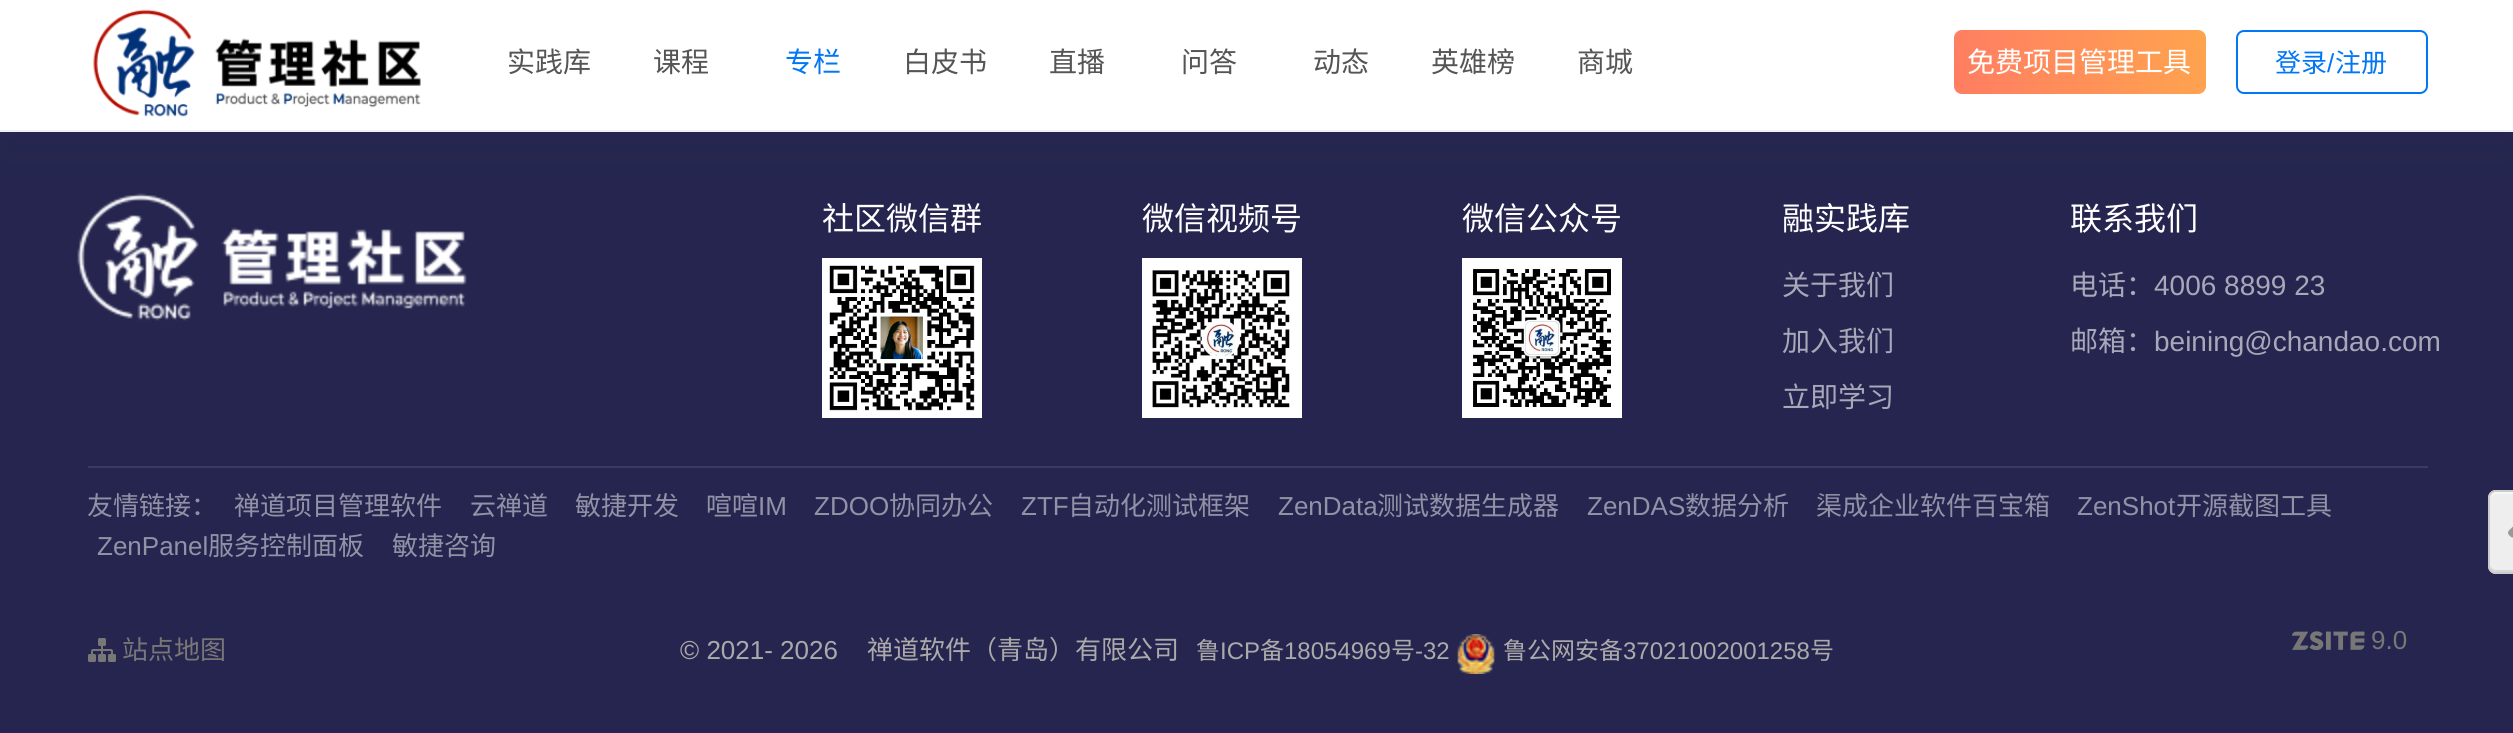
import math
import cairocffi as cairo

surface = cairo.ImageSurface(cairo.FORMAT_RGB24, 2513, 733)
ctx = cairo.Context(surface)
options = cairo.FontOptions()
options.set_hint_metrics(cairo.HINT_METRICS_OFF)
options.set_hint_style(cairo.HINT_STYLE_NONE)
ctx.set_font_options(options)
ctx.set_miter_limit(4)


def rgb(r, g, b):
    ctx.set_source_rgb(r / 255, g / 255, b / 255)


def face(family, size, italic, bold):
    ctx.select_font_face(family, cairo.FONT_SLANT_ITALIC if italic else cairo.FONT_SLANT_NORMAL, cairo.FONT_WEIGHT_BOLD if bold else cairo.FONT_WEIGHT_NORMAL)
    ctx.set_font_size(size)


def label(x, y, s):
    ctx.move_to(x, y)
    ctx.show_text(s)


def rect(x, y, w, h):
    ctx.rectangle(x, y, w, h)
    ctx.fill()


def rrect(x, y, w, h, r):
    ctx.new_sub_path()
    for i, (u, v) in enumerate([(x + w - r, y + h - r), (x + r, y + h - r), (x + r, y + r), (x + w - r, y + r)]):
        ctx.arc(u, v, r, i * math.pi / 2, (i + 1) * math.pi / 2)
    ctx.close_path()


def soft_shadow(x, y, w, h, r, blur, alpha):
    ctx.push_group_with_content(cairo.CONTENT_ALPHA)
    ctx.set_operator(cairo.OPERATOR_SOURCE)
    for i in range(15, -16, -2):
        e = blur * i / 6
        if min(w, h) + 2 * e > 0:
            ctx.set_source_rgba(0, 0, 0, alpha * math.erfc((i - 1) / 8.5) / 2)
            rrect(x - e, y - e, w + 2 * e, h + 2 * e, max(0, min(r + e + blur * .6, min(w, h) / 2 + e)))
            ctx.fill()
    ctx.mask(ctx.pop_group())


def image(path, x, y, w, h):
    ctx.save()
    ctx.set_source_surface(cairo.ImageSurface.create_from_png(path), x, y)
    ctx.rectangle(x, y, w, h)
    ctx.fill()
    ctx.restore()


rgb(246, 247, 250)
ctx.paint()
rgb(37, 37, 79)
rect(0, 132, 2513, 601)
image('image1.png', 77, 193, 390, 128)
rgb(60, 89, 115)
soft_shadow(0, 8, 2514, 130, 0, 30, 0.06)
rgb(255, 255, 255)
rect(0, 0, 2513, 130)
image('image0.png', 92, 9, 329, 108)
face('Noto Sans CJK SC', 28, 0, 0)
rgb(85, 85, 85)
label(507, 72, '实践库')
label(653, 72, '课程')
rgb(2, 119, 245)
label(785, 72, '专栏')
rgb(85, 85, 85)
label(903, 72, '白皮书')
label(1049, 72, '直播')
label(1181, 72, '问答')
label(1313, 72, '动态')
label(1431, 72, '英雄榜')
label(1577, 72, '商城')
gradient = cairo.LinearGradient(1952, 86, 2208, 38)
gradient.add_color_stop_rgba(0.03, 1, 0.494, 0.384, 1)
gradient.add_color_stop_rgba(0.97, 1, 0.639, 0.31, 1)
ctx.set_source(gradient)
rrect(1954, 30, 252, 64, 8)
ctx.fill()
rgb(255, 255, 255)
label(1967, 72, '免费项目管理工具')
rrect(2237, 31, 190, 62, 7)
rgb(2, 119, 245)
ctx.stroke()
face('Noto Sans CJK SC', 26, 0, 0)
label(2275, 72, '登录')
face('Liberation Sans', 26, 0, 0)
label(2327, 72, '/')
face('Noto Sans CJK SC', 26, 0, 0)
label(2335, 72, '注册')
face('Noto Sans CJK SC', 32, 0, 0)
rgb(255, 255, 255)
label(822, 230, '社区微信群')
image('image2.png', 822, 258, 160, 160)
label(1142, 230, '微信视频号')
image('image3.png', 1142, 258, 160, 160)
label(1462, 230, '微信公众号')
image('image4.png', 1462, 258, 160, 160)
label(1782, 230, '融实践库')
face('Noto Sans CJK SC', 28, 0, 0)
rgb(168, 168, 185)
label(1782, 295, '关于我们')
label(1782, 351, '加入我们')
label(1782, 407, '立即学习')
face('Noto Sans CJK SC', 32, 0, 0)
rgb(255, 255, 255)
label(2070, 230, '联系我们')
face('Noto Sans CJK SC', 28, 0, 0)
rgb(168, 168, 185)
label(2070, 295, '电话：')
face('Liberation Sans', 28, 0, 0)
label(2154, 295, '4006 8899 23')
face('Noto Sans CJK SC', 28, 0, 0)
label(2070, 351, '邮箱：')
face('Liberation Sans', 28, 0, 0)
label(2154, 351, 'beining@chandao.com')
rgb(59, 59, 97)
rect(88, 466, 2340, 2)
face('Noto Sans CJK SC', 26, 0, 0)
rgb(146, 146, 167)
label(87, 515, '友情链接：')
label(234, 515, '禅道项目管理软件')
label(470, 515, '云禅道')
label(575, 515, '敏捷开发')
label(706, 515, '喧喧')
face('Liberation Sans', 26, 0, 0)
label(758, 515, 'IM')
label(814, 515, 'ZDOO')
face('Noto Sans CJK SC', 26, 0, 0)
label(889, 515, '协同办公')
face('Liberation Sans', 26, 0, 0)
label(1021, 515, 'ZTF')
face('Noto Sans CJK SC', 26, 0, 0)
label(1068, 515, '自动化测试框架')
face('Liberation Sans', 26, 0, 0)
label(1278, 515, 'ZenData')
face('Noto Sans CJK SC', 26, 0, 0)
label(1377, 515, '测试数据生成器')
face('Liberation Sans', 26, 0, 0)
label(1587, 515, 'ZenDAS')
face('Noto Sans CJK SC', 26, 0, 0)
label(1685, 515, '数据分析')
label(1816, 515, '渠成企业软件百宝箱')
face('Liberation Sans', 26, 0, 0)
label(2077, 515, 'ZenShot')
face('Noto Sans CJK SC', 26, 0, 0)
label(2176, 515, '开源截图工具')
face('Liberation Sans', 26, 0, 0)
label(97, 555, 'ZenPanel')
face('Noto Sans CJK SC', 26, 0, 0)
label(208, 555, '服务控制面板')
label(392, 555, '敏捷咨询')
image('image5.png', 88, 638, 28, 24)
rgb(119, 119, 119)
label(122, 659, '站点地图')
face('Liberation Sans', 26, 0, 0)
rgb(170, 170, 170)
label(680, 659, '© 2021- 2026')
face('Noto Sans CJK SC', 26, 0, 0)
label(867, 659, '禅道软件（青岛）有限公司')
face('Noto Sans CJK SC', 24, 0, 0)
label(1196, 659, '鲁')
face('Liberation Sans', 24, 0, 0)
label(1220, 659, 'ICP')
face('Noto Sans CJK SC', 24, 0, 0)
label(1260, 659, '备')
face('Liberation Sans', 24, 0, 0)
label(1284, 659, '18054969')
face('Noto Sans CJK SC', 24, 0, 0)
label(1391, 659, '号')
face('Liberation Sans', 24, 0, 0)
label(1415, 659, '-32')
image('image6.png', 1457, 634, 38, 40)
face('Noto Sans CJK SC', 24, 0, 0)
label(1503, 659, '鲁公网安备')
face('Liberation Sans', 24, 0, 0)
label(1623, 659, '37021002001258')
face('Noto Sans CJK SC', 24, 0, 0)
label(1810, 659, '号')
image('image7.png', 2292, 631, 73, 20)
face('Liberation Sans', 26, 0, 0)
rgb(119, 119, 119)
label(2371, 649, '9.0')
rgb(238, 238, 238)
rrect(2488, 490, 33, 84, 8)
ctx.fill()
rgb(214, 214, 214)
ctx.new_path()
ctx.move_to(2490, 564)
ctx.curve_to(2490, 574, 2498, 572, 2507, 572)
ctx.line_to(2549, 572)
ctx.curve_to(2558, 572, 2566, 574, 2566, 564)
ctx.curve_to(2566, 567, 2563, 570, 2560, 570)
ctx.line_to(2496, 570)
ctx.curve_to(2493, 570, 2490, 567, 2490, 564)
ctx.close_path()
ctx.fill()
rgb(247, 247, 247)
ctx.new_path()
ctx.move_to(2496, 494)
ctx.line_to(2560, 494)
ctx.curve_to(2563, 494, 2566, 497, 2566, 500)
ctx.curve_to(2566, 490, 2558, 492, 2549, 492)
ctx.line_to(2507, 492)
ctx.curve_to(2498, 492, 2490, 490, 2490, 500)
ctx.curve_to(2490, 497, 2493, 494, 2496, 494)
ctx.close_path()
ctx.fill()
rrect(2489, 491, 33, 82, 7)
rgb(204, 204, 204)
ctx.stroke()
image('image8.png', 2508, 526, 5, 12)
surface.write_to_png('render.png')
